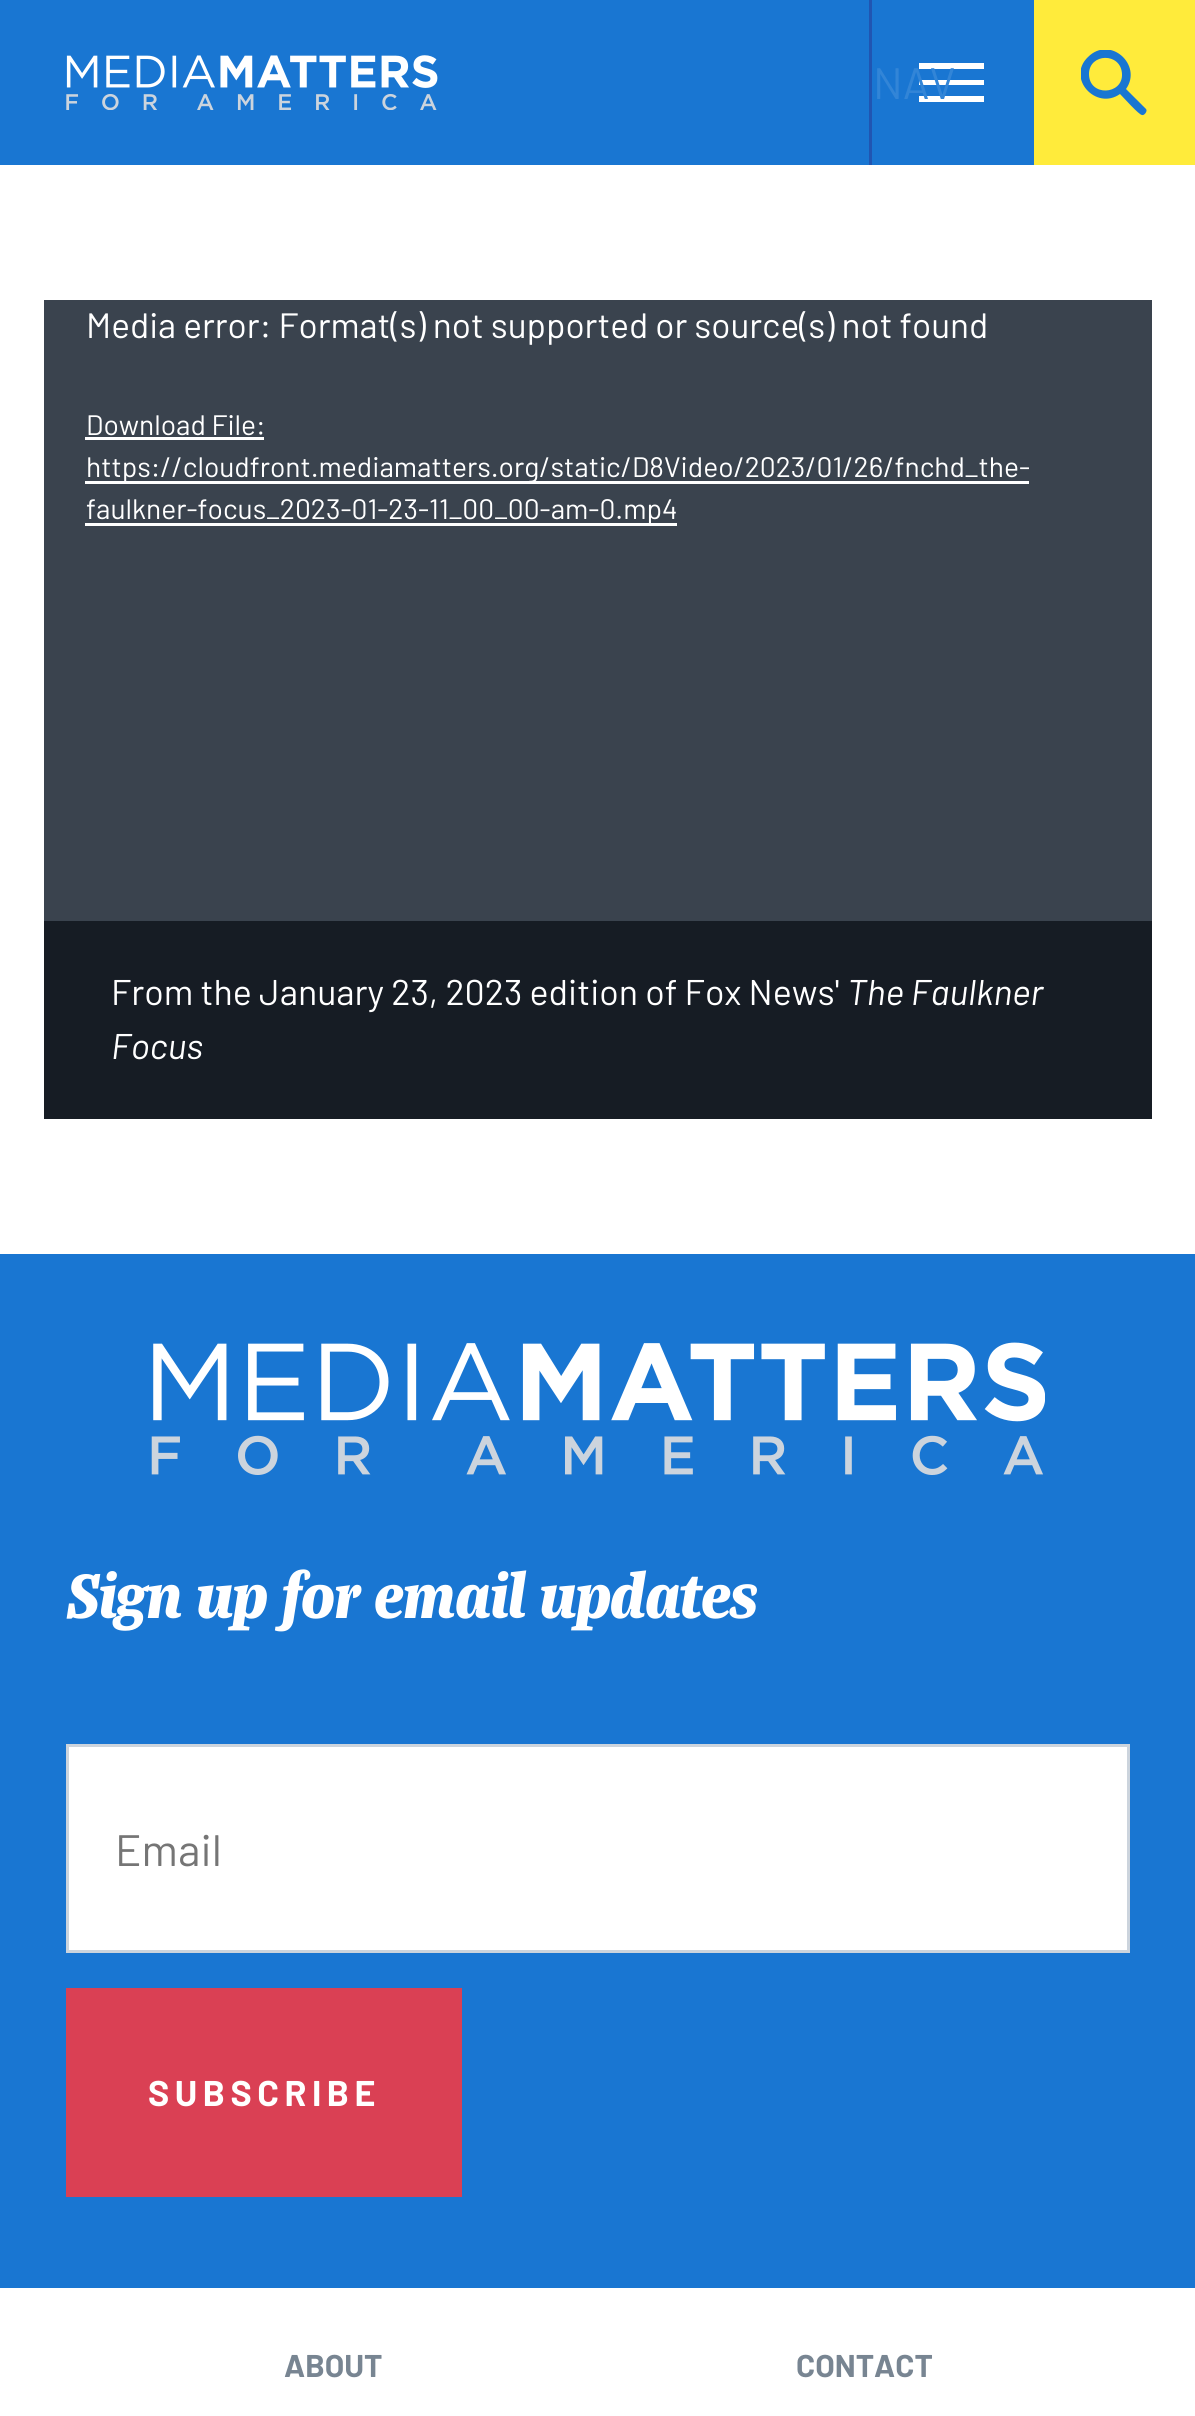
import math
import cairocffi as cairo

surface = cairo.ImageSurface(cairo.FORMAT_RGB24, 1195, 2416)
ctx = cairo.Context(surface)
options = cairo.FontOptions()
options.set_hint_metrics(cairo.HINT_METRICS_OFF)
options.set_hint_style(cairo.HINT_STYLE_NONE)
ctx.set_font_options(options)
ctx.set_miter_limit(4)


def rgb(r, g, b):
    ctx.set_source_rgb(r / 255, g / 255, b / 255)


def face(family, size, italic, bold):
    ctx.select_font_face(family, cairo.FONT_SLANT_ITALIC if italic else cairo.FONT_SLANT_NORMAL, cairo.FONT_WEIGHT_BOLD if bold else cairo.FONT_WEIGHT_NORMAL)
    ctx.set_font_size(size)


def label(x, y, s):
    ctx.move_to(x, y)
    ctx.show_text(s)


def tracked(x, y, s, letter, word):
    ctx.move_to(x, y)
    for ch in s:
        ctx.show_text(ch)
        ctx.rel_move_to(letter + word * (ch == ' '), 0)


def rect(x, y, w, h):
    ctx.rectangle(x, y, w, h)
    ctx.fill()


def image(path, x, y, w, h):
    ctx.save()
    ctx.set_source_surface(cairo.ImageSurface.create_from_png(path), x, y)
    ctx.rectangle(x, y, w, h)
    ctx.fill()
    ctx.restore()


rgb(255, 255, 255)
ctx.paint()
rgb(25, 118, 210)
rect(0, 0, 1034, 165)
image('image0.png', 66, 55, 372, 55)
ctx.save()
ctx.rectangle(919, 50, 68, 66)
ctx.clip()
rgb(255, 255, 255)
ctx.set_fill_rule(cairo.FILL_RULE_EVEN_ODD)
ctx.new_path()
ctx.move_to(918, 63)
ctx.line_to(984, 63)
ctx.line_to(984, 69)
ctx.line_to(918, 69)
ctx.close_path()
ctx.move_to(918, 80)
ctx.line_to(984, 80)
ctx.line_to(984, 85)
ctx.line_to(918, 85)
ctx.close_path()
ctx.move_to(918, 96)
ctx.line_to(984, 96)
ctx.line_to(984, 102)
ctx.line_to(918, 102)
ctx.close_path()
ctx.fill()
ctx.restore()
rgb(32, 85, 178)
rect(869, 0, 3, 165)
face('Barlow', 44, 0, 0)
rgb(50, 133, 215)
label(873, 99, 'NAV')
rgb(255, 235, 59)
rect(1034, 0, 161, 165)
ctx.save()
ctx.rectangle(1081, 50, 69, 66)
ctx.clip()
rgb(25, 118, 210)
ctx.set_fill_rule(cairo.FILL_RULE_EVEN_ODD)
ctx.new_path()
ctx.move_to(1089, 74)
ctx.curve_to(1089, 53, 1121, 52, 1122, 74)
ctx.curve_to(1123, 95, 1089, 97, 1089, 74)
ctx.move_to(1146, 109)
ctx.line_to(1126, 89)
ctx.curve_to(1143, 65, 1110, 35, 1088, 57)
ctx.curve_to(1066, 78, 1096, 111, 1120, 94)
ctx.curve_to(1123, 97, 1139, 115, 1142, 115)
ctx.curve_to(1144, 116, 1148, 111, 1146, 109)
ctx.fill()
ctx.restore()
rgb(58, 67, 78)
rect(44, 300, 1108, 621)
face('Barlow', 35.2, 0, 0)
rgb(255, 255, 255)
label(86, 338, 'Media error: Format(s) not supported or source(s) not found')
face('Barlow', 28.15, 0, 0)
label(86, 435, 'Download File:')
rect(85, 437, 179, 3)
rect(85, 481, 944, 3)
label(86, 477, 'https://cloudfront.mediamatters.org/static/D8Video/2023/01/26/fnchd_the-')
rect(85, 523, 592, 3)
label(86, 519, 'faulkner-focus_2023-01-23-11_00_00-am-0.mp4')
rgb(22, 28, 36)
rect(44, 921, 1108, 198)
face('Barlow', 35.75, 0, 0)
rgb(255, 255, 255)
label(111, 1005, 'From the January 23, 2023 edition of Fox News\'')
face('Barlow', 35.75, 1, 0)
label(847, 1005, 'The Faulkner')
label(111, 1059, 'Focus')
rgb(25, 118, 210)
rect(0, 1254, 1195, 1034)
image('image1.png', 151, 1342, 894, 133)
face('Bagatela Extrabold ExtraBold', 67.1, 1, 0)
rgb(255, 255, 255)
label(67, 1618, 'Sign up for email updates')
ctx.rectangle(67.5, 1745.5, 1061, 206)
ctx.fill_preserve()
rgb(204, 212, 221)
ctx.set_line_width(3)
ctx.stroke()
face('Barlow', 44, 0, 0)
rgb(117, 117, 117)
label(115, 1866, 'Email')
rgb(218, 64, 84)
rect(66, 1988, 396, 209)
face('Barlow', 35.75, 0, 1)
rgb(255, 255, 255)
tracked(148, 2106, 'SUBSCRIBE', 5.5, 0)
face('Barlow', 31.5, 0, 1)
rgb(120, 133, 146)
label(284, 2377, 'ABOUT')
label(796, 2377, 'CONTACT')
surface.write_to_png('render.png')
